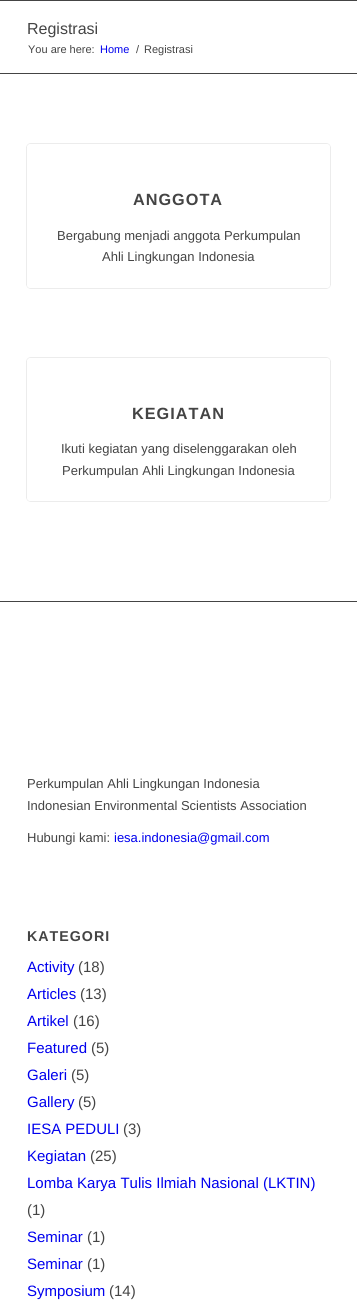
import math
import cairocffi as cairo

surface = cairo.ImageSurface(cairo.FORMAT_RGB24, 357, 1308)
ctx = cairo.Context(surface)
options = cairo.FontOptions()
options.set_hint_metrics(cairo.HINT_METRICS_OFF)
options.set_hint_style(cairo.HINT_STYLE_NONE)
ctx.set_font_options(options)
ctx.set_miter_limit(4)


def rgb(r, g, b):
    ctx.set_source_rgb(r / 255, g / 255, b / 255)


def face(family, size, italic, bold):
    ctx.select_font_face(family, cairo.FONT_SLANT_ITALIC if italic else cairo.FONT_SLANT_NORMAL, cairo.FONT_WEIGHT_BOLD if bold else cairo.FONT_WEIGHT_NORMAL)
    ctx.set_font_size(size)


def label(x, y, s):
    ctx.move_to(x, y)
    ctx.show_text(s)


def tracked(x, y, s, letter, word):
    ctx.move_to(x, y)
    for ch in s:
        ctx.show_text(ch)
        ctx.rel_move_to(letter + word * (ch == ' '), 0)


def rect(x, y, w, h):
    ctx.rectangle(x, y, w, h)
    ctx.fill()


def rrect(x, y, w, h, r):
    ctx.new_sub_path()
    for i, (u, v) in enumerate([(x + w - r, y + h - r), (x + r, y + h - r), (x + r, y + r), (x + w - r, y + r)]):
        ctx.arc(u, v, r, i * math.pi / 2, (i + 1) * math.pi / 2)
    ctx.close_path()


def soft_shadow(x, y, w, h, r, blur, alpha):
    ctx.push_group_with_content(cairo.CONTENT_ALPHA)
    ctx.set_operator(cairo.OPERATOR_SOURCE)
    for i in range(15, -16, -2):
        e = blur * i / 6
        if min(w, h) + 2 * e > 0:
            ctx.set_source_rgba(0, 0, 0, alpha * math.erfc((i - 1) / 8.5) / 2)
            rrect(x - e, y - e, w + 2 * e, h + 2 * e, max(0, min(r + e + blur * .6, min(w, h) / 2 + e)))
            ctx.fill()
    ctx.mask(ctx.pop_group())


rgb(255, 255, 255)
ctx.paint()
rgb(68, 68, 68)
rect(0, 0, 357, 1)
face('Liberation Sans', 16, 0, 0)
label(27, 34, 'Registrasi')
face('Liberation Sans', 11, 0, 0)
label(28, 53, 'You are here:')
rgb(0, 0, 238)
label(100, 53, 'Home')
rgb(68, 68, 68)
label(136, 53, '/')
label(144, 53, 'Registrasi')
rect(0, 73, 357, 1)
ctx.save()
ctx.set_fill_rule(cairo.FILL_RULE_EVEN_ODD)
ctx.new_path()
ctx.move_to(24, 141)
ctx.line_to(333, 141)
ctx.line_to(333, 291)
ctx.line_to(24, 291)
ctx.close_path()
ctx.move_to(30, 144)
ctx.line_to(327, 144)
ctx.curve_to(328.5, 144, 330, 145.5, 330, 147)
ctx.line_to(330, 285)
ctx.curve_to(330, 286.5, 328.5, 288, 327, 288)
ctx.line_to(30, 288)
ctx.curve_to(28.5, 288, 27, 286.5, 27, 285)
ctx.line_to(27, 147)
ctx.curve_to(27, 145.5, 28.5, 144, 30, 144)
ctx.close_path()
ctx.clip()
rgb(0, 0, 0)
soft_shadow(27, 144, 303, 144, 3, 0.5, 0.3)
ctx.restore()
face('Liberation Sans', 16.25, 0, 1)
tracked(133, 205, 'ANGGOTA', 1, 0)
face('Liberation Sans', 13, 0, 0)
label(57, 240, 'Bergabung menjadi anggota Perkumpulan')
label(102, 261, 'Ahli Lingkungan Indonesia')
ctx.save()
ctx.set_fill_rule(cairo.FILL_RULE_EVEN_ODD)
ctx.new_path()
ctx.move_to(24, 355)
ctx.line_to(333, 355)
ctx.line_to(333, 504)
ctx.line_to(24, 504)
ctx.close_path()
ctx.move_to(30, 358)
ctx.line_to(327, 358)
ctx.curve_to(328.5, 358, 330, 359.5, 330, 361)
ctx.line_to(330, 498)
ctx.curve_to(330, 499.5, 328.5, 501, 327, 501)
ctx.line_to(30, 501)
ctx.curve_to(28.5, 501, 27, 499.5, 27, 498)
ctx.line_to(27, 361)
ctx.curve_to(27, 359.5, 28.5, 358, 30, 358)
ctx.close_path()
ctx.clip()
rgb(0, 0, 0)
soft_shadow(27, 358, 303, 143, 3, 0.5, 0.3)
ctx.restore()
face('Liberation Sans', 16.25, 0, 1)
tracked(132, 419, 'KEGIATAN', 1, 0)
face('Liberation Sans', 13, 0, 0)
label(61, 453, 'Ikuti kegiatan yang diselenggarakan oleh')
label(62, 475, 'Perkumpulan Ahli Lingkungan Indonesia')
rect(0, 601, 357, 1)
label(27, 788, 'Perkumpulan Ahli Lingkungan Indonesia')
label(27, 810, 'Indonesian Environmental Scientists Association')
label(27, 842, 'Hubungi kami:')
rgb(0, 0, 238)
label(114, 842, 'iesa.indonesia@gmail.com')
face('Liberation Sans', 14.25, 0, 1)
rgb(68, 68, 68)
tracked(27, 941, 'KATEGORI', 1, 0)
face('Liberation Sans', 15, 0, 0)
rgb(0, 0, 238)
label(27, 972, 'Activity')
rgb(68, 68, 68)
label(78, 972, '(18)')
rgb(0, 0, 238)
label(27, 999, 'Articles')
rgb(68, 68, 68)
label(80, 999, '(13)')
rgb(0, 0, 238)
label(27, 1026, 'Artikel')
rgb(68, 68, 68)
label(73, 1026, '(16)')
rgb(0, 0, 238)
label(27, 1053, 'Featured')
rgb(68, 68, 68)
label(91, 1053, '(5)')
rgb(0, 0, 238)
label(27, 1080, 'Galeri')
rgb(68, 68, 68)
label(71, 1080, '(5)')
rgb(0, 0, 238)
label(27, 1107, 'Gallery')
rgb(68, 68, 68)
label(78, 1107, '(5)')
rgb(0, 0, 238)
label(27, 1134, 'IESA PEDULI')
rgb(68, 68, 68)
label(123, 1134, '(3)')
rgb(0, 0, 238)
label(27, 1161, 'Kegiatan')
rgb(68, 68, 68)
label(90, 1161, '(25)')
rgb(0, 0, 238)
label(27, 1188, 'Lomba Karya Tulis Ilmiah Nasional (LKTIN)')
rgb(68, 68, 68)
label(27, 1215, '(1)')
rgb(0, 0, 238)
label(27, 1242, 'Seminar')
rgb(68, 68, 68)
label(87, 1242, '(1)')
rgb(0, 0, 238)
label(27, 1269, 'Seminar')
rgb(68, 68, 68)
label(87, 1269, '(1)')
rgb(0, 0, 238)
label(27, 1296, 'Symposium')
rgb(68, 68, 68)
label(109, 1296, '(14)')
surface.write_to_png('render.png')
